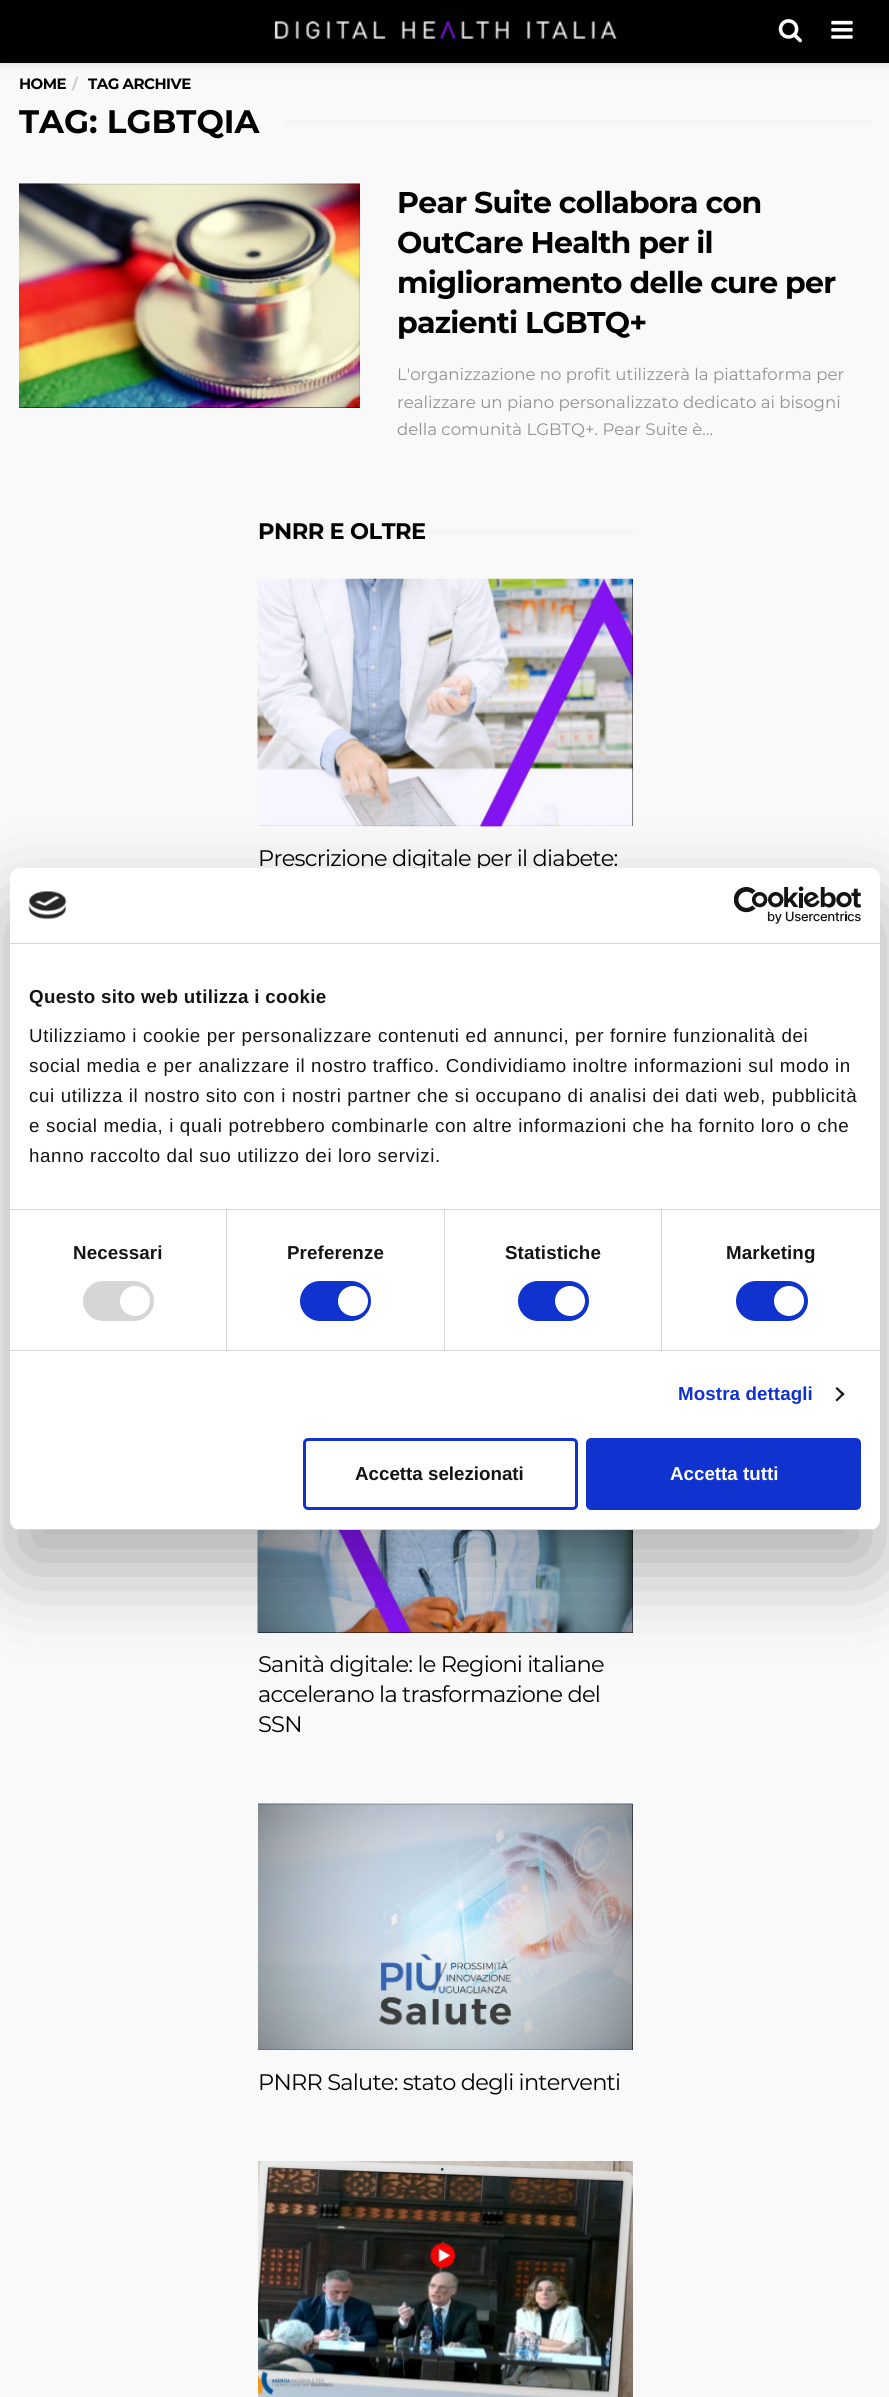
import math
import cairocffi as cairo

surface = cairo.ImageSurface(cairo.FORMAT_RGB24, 889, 2397)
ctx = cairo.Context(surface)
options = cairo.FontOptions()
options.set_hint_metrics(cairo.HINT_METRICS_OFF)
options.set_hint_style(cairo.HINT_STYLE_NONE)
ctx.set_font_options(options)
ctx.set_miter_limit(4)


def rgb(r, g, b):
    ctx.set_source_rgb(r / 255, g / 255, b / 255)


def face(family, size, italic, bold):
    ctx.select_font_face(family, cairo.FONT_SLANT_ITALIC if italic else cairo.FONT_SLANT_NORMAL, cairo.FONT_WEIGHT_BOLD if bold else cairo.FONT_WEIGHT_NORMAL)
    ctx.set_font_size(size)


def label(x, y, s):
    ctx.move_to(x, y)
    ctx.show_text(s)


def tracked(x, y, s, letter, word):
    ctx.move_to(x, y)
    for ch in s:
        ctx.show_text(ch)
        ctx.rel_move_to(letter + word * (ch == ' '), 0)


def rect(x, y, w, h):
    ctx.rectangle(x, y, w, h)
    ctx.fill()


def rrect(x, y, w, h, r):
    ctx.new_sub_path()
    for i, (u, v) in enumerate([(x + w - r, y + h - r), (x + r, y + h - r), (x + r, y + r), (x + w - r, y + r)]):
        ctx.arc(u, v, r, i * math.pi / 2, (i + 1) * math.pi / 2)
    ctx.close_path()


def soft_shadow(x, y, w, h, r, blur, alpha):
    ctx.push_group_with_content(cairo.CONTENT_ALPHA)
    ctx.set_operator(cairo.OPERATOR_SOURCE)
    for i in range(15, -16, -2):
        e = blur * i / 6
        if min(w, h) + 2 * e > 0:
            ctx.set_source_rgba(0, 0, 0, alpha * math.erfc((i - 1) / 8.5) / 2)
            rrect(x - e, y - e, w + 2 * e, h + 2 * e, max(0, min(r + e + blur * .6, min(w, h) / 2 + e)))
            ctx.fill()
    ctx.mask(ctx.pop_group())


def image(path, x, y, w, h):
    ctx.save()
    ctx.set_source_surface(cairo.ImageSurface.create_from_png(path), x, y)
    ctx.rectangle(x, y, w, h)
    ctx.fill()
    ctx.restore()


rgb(249, 249, 249)
ctx.paint()
rgb(0, 0, 0)
soft_shadow(0, 0, 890, 63, 0, 6, 0.15)
rgb(1, 1, 1)
rect(0, 0, 889, 63)
image('image0.png', 274, 21, 343, 18)
image('image1.png', 778, 19, 24, 24)
image('image2.png', 831, 20, 22, 19)
face('Montserrat', 15, 0, 1)
tracked(19, 89, 'HOME', -0.5, 0)
rgb(204, 204, 204)
tracked(72, 89, '/', -0.5, 0)
rgb(1, 1, 1)
tracked(88, 89, 'TAG ARCHIVE', -0.5, 0)
face('Montserrat', 32.5, 0, 1)
label(19, 133, 'TAG: LGBTQIA')
rgb(245, 245, 245)
rect(284, 120, 587, 6)
rgb(1, 1, 1)
rect(19, 184, 341, 224)
image('image3.png', 19, 183, 341, 225)
face('Montserrat', 30, 0, 1)
tracked(397, 213, 'Pear Suite collabora con', -0.75, 0)
tracked(397, 253, 'OutCare Health per il', -0.75, 0)
tracked(397, 293, 'miglioramento delle cure per', -0.75, 0)
tracked(397, 333, 'pazienti LGBTQ+', -0.75, 0)
face('Montserrat', 16.6, 0, 0)
rgb(145, 145, 145)
label(397, 380, 'L\'organizzazione no profit utilizzerà la piattaforma per')
label(397, 408, 'realizzare un piano personalizzato dedicato ai bisogni')
label(397, 435, 'della comunità LGBTQ+. Pear Suite è…')
rgb(245, 245, 245)
rect(258, 529, 375, 6)
face('Montserrat', 22.5, 0, 1)
rgb(1, 1, 1)
tracked(258, 539, 'PNRR E OLTRE', -0.5, 0)
rect(258, 579, 375, 247)
image('image4.png', 257, 578, 376, 249)
face('Montserrat', 22.5, 0, 0)
tracked(258, 866, 'Prescrizione digitale per il diabete:', -0.75, 0)
rect(258, 1530, 375, 103)
image('image5.png', 257, 1530, 376, 103)
tracked(258, 1672, 'Sanità digitale: le Regioni italiane', -0.75, 0)
tracked(258, 1702, 'accelerano la trasformazione del', -0.75, 0)
tracked(258, 1732, 'SSN', -0.75, 0)
rect(258, 1804, 375, 246)
image('image6.png', 258, 1803, 375, 247)
tracked(258, 2090, 'PNRR Salute: stato degli interventi', -0.75, 0)
image('image7.png', 258, 2161, 375, 236)
rgb(0, 0, 0)
soft_shadow(10, 908, 870, 662, 10, 42.5, 0.3)
rgb(255, 255, 255)
rrect(10, 868, 870, 662, 10)
ctx.fill()
rgb(214, 214, 214)
rect(10, 943, 870, 1)
image('image8.png', 28, 891, 39, 29)
image('image9.png', 734, 886, 127, 38)
rect(10, 1209, 870, 1)
face('Liberation Sans', 18.75, 0, 1)
rgb(20, 20, 20)
tracked(29, 1003, 'Questo sito web utilizza i cookie', 0.3, 0)
face('Liberation Sans', 18.75, 0, 0)
tracked(29, 1042, 'Utilizziamo i cookie per personalizzare contenuti ed annunci, per fornire funzionalità dei', 0.62, 0)
tracked(29, 1072, 'social media e per analizzare il nostro traffico. Condividiamo inoltre informazioni sul modo in', 0.62, 0)
tracked(29, 1102, 'cui utilizza il nostro sito con i nostri partner che si occupano di analisi dei dati web, pubblicità', 0.62, 0)
tracked(29, 1132, 'e social media, i quali potrebbero combinarle con altre informazioni che ha fornito loro o che', 0.62, 0)
tracked(29, 1162, 'hanno raccolto dal suo utilizzo dei loro servizi.', 0.62, 0)
rgb(214, 214, 214)
rect(10, 1350, 870, 1)
rect(226, 1210, 1, 140)
face('Liberation Sans', 18.75, 0, 1)
rgb(20, 20, 20)
tracked(73, 1259, 'Necessari', 0.1, 0)
rgb(214, 214, 214)
rrect(83, 1281, 71, 40, 20)
ctx.fill()
rgb(255, 255, 255)
ctx.arc(135, 1301, 15, 0, 2 * math.pi)
ctx.fill()
rgb(214, 214, 214)
rect(444, 1210, 1, 140)
rgb(20, 20, 20)
tracked(287, 1259, 'Preferenze', 0.1, 0)
rgb(16, 50, 207)
rrect(300, 1281, 71, 40, 20)
ctx.fill()
rgb(255, 255, 255)
ctx.arc(353, 1301, 15, 0, 2 * math.pi)
ctx.fill()
rgb(214, 214, 214)
rect(661, 1210, 1, 140)
rgb(20, 20, 20)
tracked(505, 1259, 'Statistiche', 0.1, 0)
rgb(16, 50, 207)
rrect(518, 1281, 71, 40, 20)
ctx.fill()
rgb(255, 255, 255)
ctx.arc(570, 1301, 15, 0, 2 * math.pi)
ctx.fill()
rgb(20, 20, 20)
tracked(726, 1259, 'Marketing', 0.1, 0)
rgb(16, 50, 207)
rrect(736, 1281, 72, 40, 20)
ctx.fill()
rgb(255, 255, 255)
ctx.arc(789, 1301, 15, 0, 2 * math.pi)
ctx.fill()
rgb(16, 50, 207)
tracked(678, 1400, 'Mostra dettagli', 0.1, 0)
rgb(20, 20, 20)
ctx.new_path()
ctx.move_to(837, 1387)
ctx.line_to(844.5, 1394)
ctx.line_to(843, 1396)
ctx.line_to(835.5, 1388.5)
ctx.close_path()
ctx.fill()
ctx.new_path()
ctx.move_to(843, 1392.5)
ctx.line_to(844.5, 1394)
ctx.line_to(837, 1401.5)
ctx.line_to(835.5, 1400)
ctx.close_path()
ctx.fill()
ctx.save()
rrect(10, 868, 870, 662, 10)
ctx.clip()
rgb(214, 214, 214)
rect(10, 1529, 870, 1)
ctx.restore()
rrect(304.5, 1439.5, 272, 69, 3.5)
rgb(16, 50, 207)
ctx.set_line_width(3)
ctx.stroke()
rgb(20, 20, 20)
label(355, 1480, 'Accetta selezionati')
rgb(16, 50, 207)
rrect(587.5, 1439.5, 272, 69, 3.5)
ctx.fill_preserve()
ctx.stroke()
rgb(255, 255, 255)
label(670, 1480, 'Accetta tutti')
surface.write_to_png('render.png')
